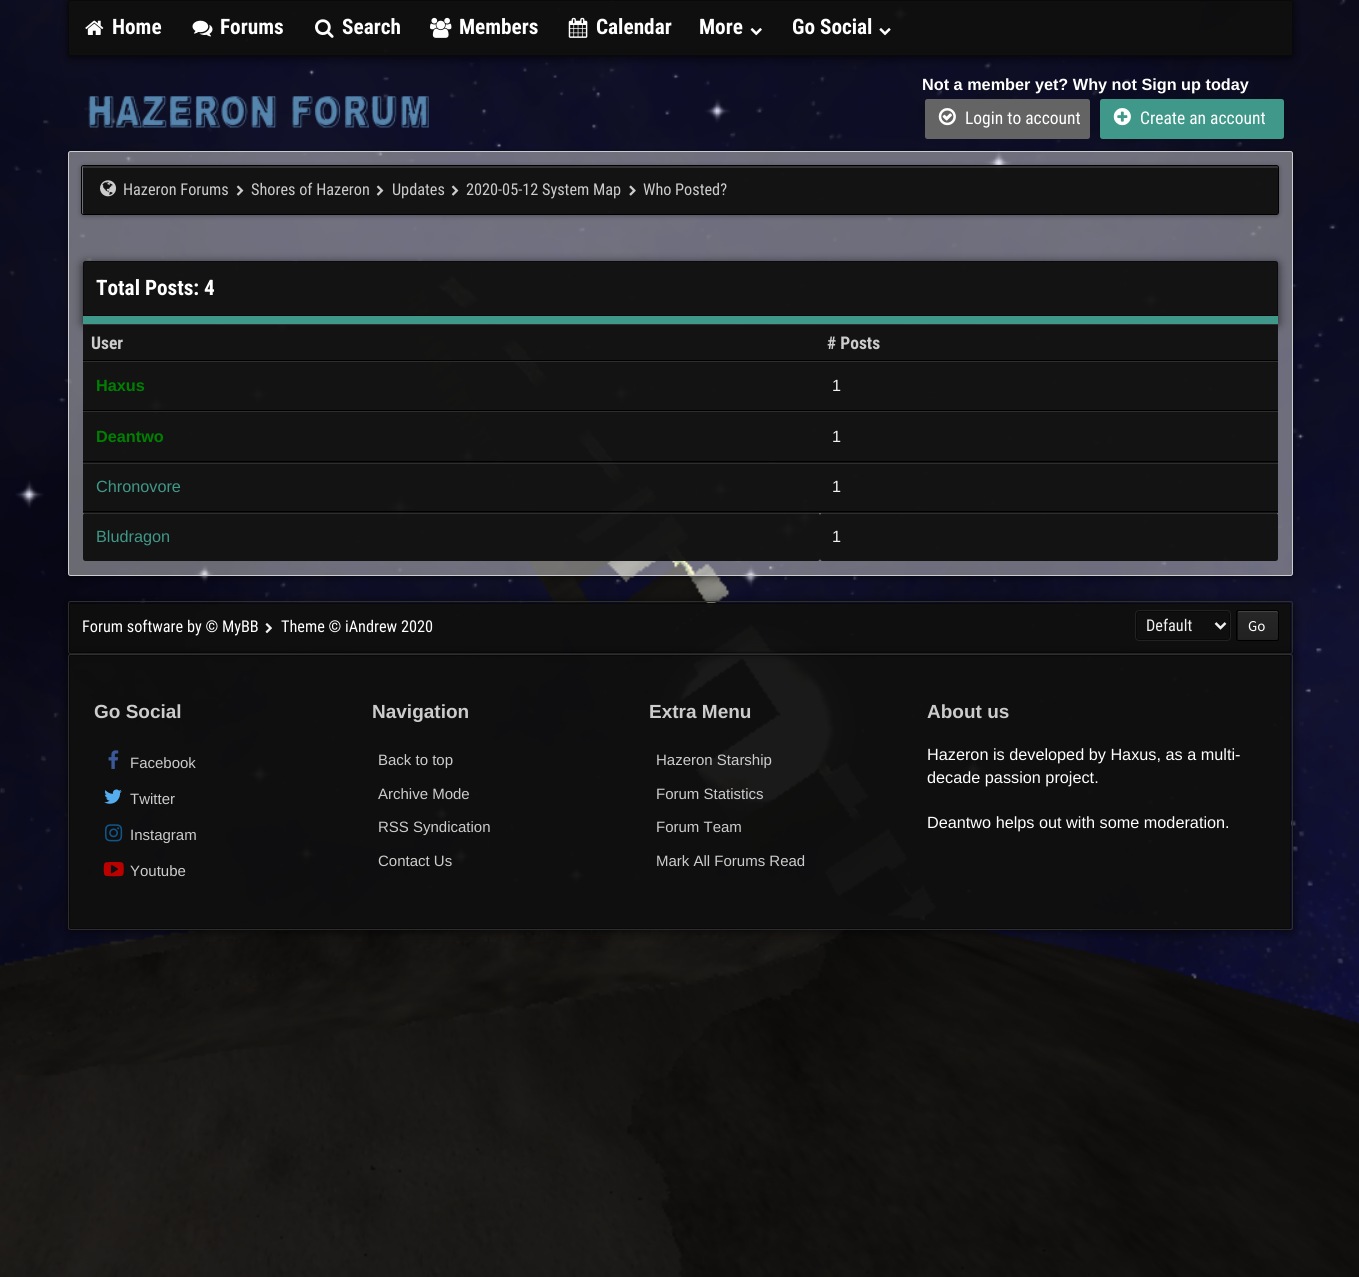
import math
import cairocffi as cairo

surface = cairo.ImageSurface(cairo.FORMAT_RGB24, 1359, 1277)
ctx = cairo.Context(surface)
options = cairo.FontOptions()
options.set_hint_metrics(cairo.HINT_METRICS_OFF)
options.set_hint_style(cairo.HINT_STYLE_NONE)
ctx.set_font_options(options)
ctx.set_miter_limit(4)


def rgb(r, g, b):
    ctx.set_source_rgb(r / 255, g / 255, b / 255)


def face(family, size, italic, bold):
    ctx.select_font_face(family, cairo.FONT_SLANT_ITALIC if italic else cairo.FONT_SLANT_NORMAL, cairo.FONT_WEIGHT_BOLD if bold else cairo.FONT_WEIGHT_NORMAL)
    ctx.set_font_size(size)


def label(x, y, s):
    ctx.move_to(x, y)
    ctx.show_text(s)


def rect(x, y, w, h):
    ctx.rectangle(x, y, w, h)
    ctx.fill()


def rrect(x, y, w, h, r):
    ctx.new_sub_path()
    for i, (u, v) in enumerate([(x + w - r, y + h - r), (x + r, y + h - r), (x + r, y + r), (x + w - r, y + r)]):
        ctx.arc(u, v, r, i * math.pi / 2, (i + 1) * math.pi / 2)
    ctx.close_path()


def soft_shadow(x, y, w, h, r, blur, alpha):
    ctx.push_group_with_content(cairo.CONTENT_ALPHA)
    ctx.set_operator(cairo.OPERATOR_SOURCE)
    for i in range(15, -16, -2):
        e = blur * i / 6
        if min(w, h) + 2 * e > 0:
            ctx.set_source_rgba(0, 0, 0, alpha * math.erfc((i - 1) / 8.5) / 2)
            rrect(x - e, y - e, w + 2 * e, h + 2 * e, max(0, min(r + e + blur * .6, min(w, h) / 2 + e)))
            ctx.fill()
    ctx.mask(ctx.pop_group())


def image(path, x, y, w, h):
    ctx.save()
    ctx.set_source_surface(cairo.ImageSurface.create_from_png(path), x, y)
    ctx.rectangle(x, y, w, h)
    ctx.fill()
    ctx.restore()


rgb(255, 255, 255)
ctx.paint()
image('image0.png', 0, 0, 1359, 1277)
ctx.save()
ctx.set_fill_rule(cairo.FILL_RULE_EVEN_ODD)
ctx.new_path()
ctx.move_to(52, 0)
ctx.line_to(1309, 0)
ctx.line_to(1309, 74)
ctx.line_to(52, 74)
ctx.close_path()
ctx.move_to(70.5, 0)
ctx.line_to(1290.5, 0)
ctx.curve_to(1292, 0, 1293, 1, 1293, 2.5)
ctx.line_to(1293, 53.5)
ctx.curve_to(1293, 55, 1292, 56, 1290.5, 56)
ctx.line_to(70.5, 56)
ctx.curve_to(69, 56, 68, 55, 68, 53.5)
ctx.line_to(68, 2.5)
ctx.curve_to(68, 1, 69, 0, 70.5, 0)
ctx.close_path()
ctx.clip()
rgb(0, 0, 0)
soft_shadow(68, 1, 1225, 57, 2.5, 5, 0.7)
ctx.restore()
ctx.set_source_rgba(0.059, 0.059, 0.059, 0.95)
rrect(68, 0, 1225, 56, 2.5)
ctx.fill()
rrect(68.5, 0.5, 1224, 55, 2)
ctx.set_source_rgba(0, 0, 0, 0.4)
ctx.set_line_width(1)
ctx.stroke()
image('image1.png', 85, 20, 19, 15)
face('Roboto Condensed', 21.25, 0, 1)
rgb(255, 255, 255)
label(112, 34, 'Home')
image('image2.png', 192, 20, 21, 17)
label(220, 34, 'Forums')
image('image3.png', 315, 19, 19, 19)
label(342, 34, 'Search')
image('image4.png', 430, 17, 22, 21)
label(459, 34, 'Members')
image('image5.png', 568, 17, 20, 21)
label(596, 34, 'Calendar')
label(699, 34, 'More')
image('image6.png', 750, 28, 12, 8)
label(792, 34, 'Go Social')
image('image7.png', 879, 28, 12, 8)
image('image8.png', 88, 96, 341, 32)
face('Liberation Sans', 16.25, 0, 1)
label(922, 90, 'Not a member yet? Why not Sign up today')
rgb(100, 100, 100)
rrect(925, 99, 165, 40, 2.5)
ctx.fill()
image('image9.png', 938, 108, 18, 18)
face('Roboto Condensed', 17.5, 0, 0)
rgb(255, 255, 255)
label(965, 124, 'Login to account')
rgb(0, 0, 0)
soft_shadow(1100, 100, 184, 40, 2.5, 2, 0.15)
rgb(63, 152, 137)
rrect(1100, 99, 184, 40, 2.5)
ctx.fill()
image('image10.png', 1113, 108, 18, 18)
rgb(255, 255, 255)
label(1140, 124, 'Create an account')
ctx.save()
ctx.set_fill_rule(cairo.FILL_RULE_EVEN_ODD)
ctx.new_path()
ctx.move_to(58, 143)
ctx.line_to(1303, 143)
ctx.line_to(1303, 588)
ctx.line_to(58, 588)
ctx.close_path()
ctx.move_to(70.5, 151)
ctx.line_to(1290.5, 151)
ctx.curve_to(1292, 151, 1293, 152, 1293, 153.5)
ctx.line_to(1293, 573.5)
ctx.curve_to(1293, 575, 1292, 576, 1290.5, 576)
ctx.line_to(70.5, 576)
ctx.curve_to(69, 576, 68, 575, 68, 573.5)
ctx.line_to(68, 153.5)
ctx.curve_to(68, 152, 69, 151, 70.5, 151)
ctx.close_path()
ctx.clip()
rgb(0, 0, 0)
soft_shadow(68, 153, 1225, 425, 2.5, 3, 0.4)
ctx.restore()
ctx.set_source_rgba(1, 1, 1, 0.4)
rrect(68.5, 151.5, 1224, 424, 2)
ctx.fill_preserve()
rgb(204, 204, 204)
ctx.stroke()
ctx.save()
ctx.set_fill_rule(cairo.FILL_RULE_EVEN_ODD)
ctx.new_path()
ctx.move_to(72, 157)
ctx.line_to(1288, 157)
ctx.line_to(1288, 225)
ctx.line_to(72, 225)
ctx.close_path()
ctx.move_to(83.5, 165)
ctx.line_to(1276.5, 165)
ctx.curve_to(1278, 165, 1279, 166, 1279, 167.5)
ctx.line_to(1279, 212.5)
ctx.curve_to(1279, 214, 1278, 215, 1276.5, 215)
ctx.line_to(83.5, 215)
ctx.curve_to(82, 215, 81, 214, 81, 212.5)
ctx.line_to(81, 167.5)
ctx.curve_to(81, 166, 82, 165, 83.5, 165)
ctx.close_path()
ctx.clip()
rgb(0, 0, 0)
soft_shadow(81, 166, 1198, 50, 2.5, 2.5, 0.3)
ctx.restore()
ctx.set_source_rgba(0.059, 0.059, 0.059, 0.95)
rrect(83, 166, 1195, 48, 1)
ctx.fill()
ctx.set_source_rgba(1, 1, 1, 0.13)
ctx.new_path()
ctx.move_to(84, 168)
ctx.line_to(1276, 168)
ctx.curve_to(1277, 168, 1278, 168, 1278, 169)
ctx.line_to(1278, 167)
ctx.curve_to(1278, 166, 1278, 166, 1277, 166)
ctx.line_to(84, 166)
ctx.curve_to(83, 166, 83, 166, 83, 167)
ctx.line_to(83, 168)
ctx.close_path()
ctx.fill()
rrect(81.5, 165.5, 1197, 49, 2)
rgb(0, 0, 0)
ctx.stroke()
image('image11.png', 100, 180, 17, 17)
face('Roboto Condensed', 16.25, 0, 0)
rgb(204, 204, 204)
label(123, 195, 'Hazeron Forums')
image('image12.png', 236, 185, 8, 11)
label(251, 195, 'Shores of Hazeron')
image('image13.png', 376, 185, 8, 11)
label(392, 195, 'Updates')
image('image14.png', 451, 185, 8, 11)
label(466, 195, '2020-05-12 System Map')
image('image15.png', 629, 185, 7, 11)
label(643, 195, 'Who Posted?')
ctx.save()
ctx.set_fill_rule(cairo.FILL_RULE_EVEN_ODD)
ctx.new_path()
ctx.move_to(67, 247)
ctx.line_to(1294, 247)
ctx.line_to(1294, 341)
ctx.line_to(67, 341)
ctx.close_path()
ctx.move_to(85.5, 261)
ctx.line_to(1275.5, 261)
ctx.curve_to(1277, 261, 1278, 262, 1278, 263.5)
ctx.line_to(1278, 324)
ctx.line_to(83, 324)
ctx.line_to(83, 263.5)
ctx.curve_to(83, 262, 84, 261, 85.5, 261)
ctx.close_path()
ctx.clip()
rgb(0, 0, 0)
soft_shadow(83, 263, 1195, 62, 2.5, 5, 0.7)
ctx.restore()
ctx.set_source_rgba(0.059, 0.059, 0.059, 0.95)
ctx.new_path()
ctx.move_to(85.5, 261)
ctx.line_to(1275.5, 261)
ctx.curve_to(1277, 261, 1278, 262, 1278, 263.5)
ctx.line_to(1278, 316)
ctx.line_to(83, 316)
ctx.line_to(83, 263.5)
ctx.curve_to(83, 262, 84, 261, 85.5, 261)
ctx.close_path()
ctx.fill()
ctx.new_path()
ctx.move_to(85.5, 261.5)
ctx.line_to(1275.5, 261.5)
ctx.curve_to(1276.5, 261.5, 1277.5, 262.5, 1277.5, 263.5)
ctx.line_to(1277.5, 315.5)
ctx.line_to(83.5, 315.5)
ctx.line_to(83.5, 263.5)
ctx.curve_to(83.5, 262.5, 84.5, 261.5, 85.5, 261.5)
ctx.close_path()
ctx.set_source_rgba(0, 0, 0, 0.4)
ctx.stroke()
rgb(63, 152, 137)
rect(83, 316, 1195, 8)
face('Roboto Condensed', 21.25, 0, 1)
rgb(255, 255, 255)
label(96, 295, 'Total Posts: 4')
ctx.set_source_rgba(0.059, 0.059, 0.059, 0.95)
rect(83, 325, 737, 35)
rgb(46, 46, 46)
rect(83, 324, 1195, 1)
rgb(0, 0, 0)
rect(83, 360, 1195, 1)
face('Roboto Condensed', 17.5, 0, 1)
rgb(204, 204, 204)
label(91, 349, 'User')
ctx.set_source_rgba(0.059, 0.059, 0.059, 0.95)
rect(820, 325, 458, 35)
rgb(204, 204, 204)
label(827, 349, '# Posts')
ctx.set_source_rgba(0.059, 0.059, 0.059, 0.95)
rect(83, 362, 737, 48)
rgb(46, 46, 46)
rect(83, 361, 1195, 1)
rgb(0, 0, 0)
rect(83, 410, 1195, 1)
face('Liberation Sans', 16.25, 0, 1)
rgb(0, 128, 0)
label(96, 391, 'Haxus')
ctx.set_source_rgba(0.059, 0.059, 0.059, 0.95)
rect(820, 362, 458, 48)
face('Liberation Sans', 16.25, 0, 0)
rgb(241, 241, 241)
label(832, 391, '1')
ctx.set_source_rgba(0.059, 0.059, 0.059, 0.95)
rect(83, 412, 737, 51)
rgb(46, 46, 46)
rect(83, 411, 1195, 1)
rgb(0, 0, 0)
rect(83, 461, 737, 1)
face('Liberation Sans', 16.25, 0, 1)
rgb(0, 128, 0)
label(96, 442, 'Deantwo')
ctx.set_source_rgba(0.059, 0.059, 0.059, 0.95)
rect(820, 412, 458, 51)
rgb(0, 0, 0)
rect(820, 461, 458, 1)
face('Liberation Sans', 16.25, 0, 0)
rgb(241, 241, 241)
label(832, 442, '1')
ctx.set_source_rgba(0.059, 0.059, 0.059, 0.95)
rect(83, 464, 737, 49)
rgb(46, 46, 46)
rect(83, 463, 1195, 1)
rgb(0, 0, 0)
rect(83, 511, 737, 1)
rgb(63, 152, 137)
label(96, 492, 'Chronovore')
ctx.set_source_rgba(0.059, 0.059, 0.059, 0.95)
rect(820, 464, 458, 49)
rgb(0, 0, 0)
rect(820, 511, 458, 1)
rgb(241, 241, 241)
label(832, 492, '1')
ctx.set_source_rgba(0.059, 0.059, 0.059, 0.95)
rrect(83, 513, 737, 48, 2.5)
ctx.fill()
rgb(46, 46, 46)
rect(84, 513, 735, 1)
rgb(63, 152, 137)
label(96, 542, 'Bludragon')
ctx.set_source_rgba(0.059, 0.059, 0.059, 0.95)
rrect(820, 513, 458, 48, 2.5)
ctx.fill()
rgb(46, 46, 46)
rect(821, 513, 455, 1)
rgb(241, 241, 241)
label(832, 542, '1')
ctx.save()
ctx.set_fill_rule(cairo.FILL_RULE_EVEN_ODD)
ctx.new_path()
ctx.move_to(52, 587)
ctx.line_to(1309, 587)
ctx.line_to(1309, 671)
ctx.line_to(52, 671)
ctx.close_path()
ctx.move_to(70.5, 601)
ctx.line_to(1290.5, 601)
ctx.curve_to(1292, 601, 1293, 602, 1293, 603.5)
ctx.line_to(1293, 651.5)
ctx.curve_to(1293, 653, 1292, 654, 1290.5, 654)
ctx.line_to(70.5, 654)
ctx.curve_to(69, 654, 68, 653, 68, 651.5)
ctx.line_to(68, 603.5)
ctx.curve_to(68, 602, 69, 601, 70.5, 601)
ctx.close_path()
ctx.clip()
rgb(0, 0, 0)
soft_shadow(68, 603, 1225, 52, 2.5, 5, 0.7)
ctx.restore()
ctx.set_source_rgba(0.059, 0.059, 0.059, 0.95)
rrect(69, 603, 1222, 50, 1)
ctx.fill()
rrect(69.5, 603.5, 1221, 49, 0.5)
ctx.set_source_rgba(0, 0, 0, 0.4)
ctx.stroke()
rrect(68.5, 601.5, 1224, 52, 2)
rgb(46, 46, 46)
ctx.stroke()
face('Roboto Condensed', 16.25, 0, 0)
rgb(255, 255, 255)
label(82, 632, 'Forum software by © MyBB')
image('image16.png', 265, 623, 7, 11)
label(281, 632, 'Theme © iAndrew 2020')
ctx.save()
ctx.set_fill_rule(cairo.FILL_RULE_EVEN_ODD)
ctx.new_path()
ctx.move_to(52, 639)
ctx.line_to(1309, 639)
ctx.line_to(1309, 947)
ctx.line_to(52, 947)
ctx.close_path()
ctx.move_to(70.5, 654)
ctx.line_to(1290.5, 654)
ctx.curve_to(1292, 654, 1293, 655, 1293, 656.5)
ctx.line_to(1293, 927.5)
ctx.curve_to(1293, 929, 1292, 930, 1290.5, 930)
ctx.line_to(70.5, 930)
ctx.curve_to(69, 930, 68, 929, 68, 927.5)
ctx.line_to(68, 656.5)
ctx.curve_to(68, 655, 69, 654, 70.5, 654)
ctx.close_path()
ctx.clip()
rgb(0, 0, 0)
soft_shadow(68, 655, 1225, 276, 2.5, 5, 0.7)
ctx.restore()
ctx.set_source_rgba(0.059, 0.059, 0.059, 0.95)
rrect(1135, 610, 96, 31, 4)
ctx.fill()
rrect(1136.5, 611.5, 93, 28, 2)
rgb(9, 9, 9)
ctx.stroke()
rrect(1135.5, 610.5, 95, 30, 3.5)
rgb(34, 34, 34)
ctx.stroke()
ctx.new_path()
ctx.move_to(1215.5, 623)
ctx.line_to(1220.5, 628)
ctx.line_to(1225.5, 623)
rgb(241, 241, 241)
ctx.set_line_width(2.5)
ctx.stroke()
label(1146, 631, 'Default')
gradient = cairo.LinearGradient(1258, 611, 1258, 640)
gradient.add_color_stop_rgba(0, 0.153, 0.153, 0.153, 1)
gradient.add_color_stop_rgba(1, 0.129, 0.129, 0.129, 1)
ctx.set_source(gradient)
rrect(1238, 611, 40, 29, 1)
ctx.fill()
ctx.set_source_rgba(1, 1, 1, 0.13)
ctx.new_path()
ctx.move_to(1239, 612)
ctx.line_to(1276, 612)
ctx.curve_to(1277, 612, 1278, 613, 1278, 614)
ctx.curve_to(1278, 609, 1277, 611, 1271, 611)
ctx.line_to(1245, 611)
ctx.curve_to(1239, 611, 1238, 609, 1238, 614)
ctx.curve_to(1238, 613, 1238, 612, 1239, 612)
ctx.close_path()
ctx.fill()
rrect(1236.5, 610.5, 42, 30, 2)
rgb(0, 0, 0)
ctx.set_line_width(1)
ctx.stroke()
face('Source Sans Pro', 15, 0, 0)
rgb(255, 255, 255)
label(1248, 631, 'Go')
ctx.set_source_rgba(0.059, 0.059, 0.059, 0.95)
rrect(69, 655, 1222, 274, 1)
ctx.fill()
rrect(69.5, 655.5, 1221, 273, 0.5)
ctx.set_source_rgba(0, 0, 0, 0.4)
ctx.stroke()
rrect(68.5, 654.5, 1224, 275, 2)
rgb(46, 46, 46)
ctx.stroke()
face('Liberation Sans', 19, 0, 1)
rgb(204, 204, 204)
label(94, 718, 'Go Social')
image('image17.png', 108, 750, 11, 19)
face('Liberation Sans', 15, 0, 0)
label(130, 768, 'Facebook')
image('image18.png', 104, 789, 18, 15)
label(130, 804, 'Twitter')
image('image19.png', 105, 824, 18, 18)
label(130, 840, 'Instagram')
image('image20.png', 103, 862, 21, 15)
label(130, 876, 'Youtube')
face('Liberation Sans', 19, 0, 1)
label(372, 718, 'Navigation')
face('Liberation Sans', 15, 0, 0)
label(378, 765, 'Back to top')
label(378, 799, 'Archive Mode')
label(378, 832, 'RSS Syndication')
label(378, 866, 'Contact Us')
face('Liberation Sans', 19, 0, 1)
label(649, 718, 'Extra Menu')
face('Liberation Sans', 15, 0, 0)
label(656, 765, 'Hazeron Starship')
label(656, 799, 'Forum Statistics')
label(656, 832, 'Forum Team')
label(656, 866, 'Mark All Forums Read')
face('Liberation Sans', 19, 0, 1)
label(927, 718, 'About us')
face('Liberation Sans', 16.25, 0, 0)
rgb(255, 255, 255)
label(927, 760, 'Hazeron is developed by Haxus, as a multi-')
label(927, 783, 'decade passion project.')
label(927, 828, 'Deantwo helps out with some moderation.')
surface.write_to_png('render.png')
